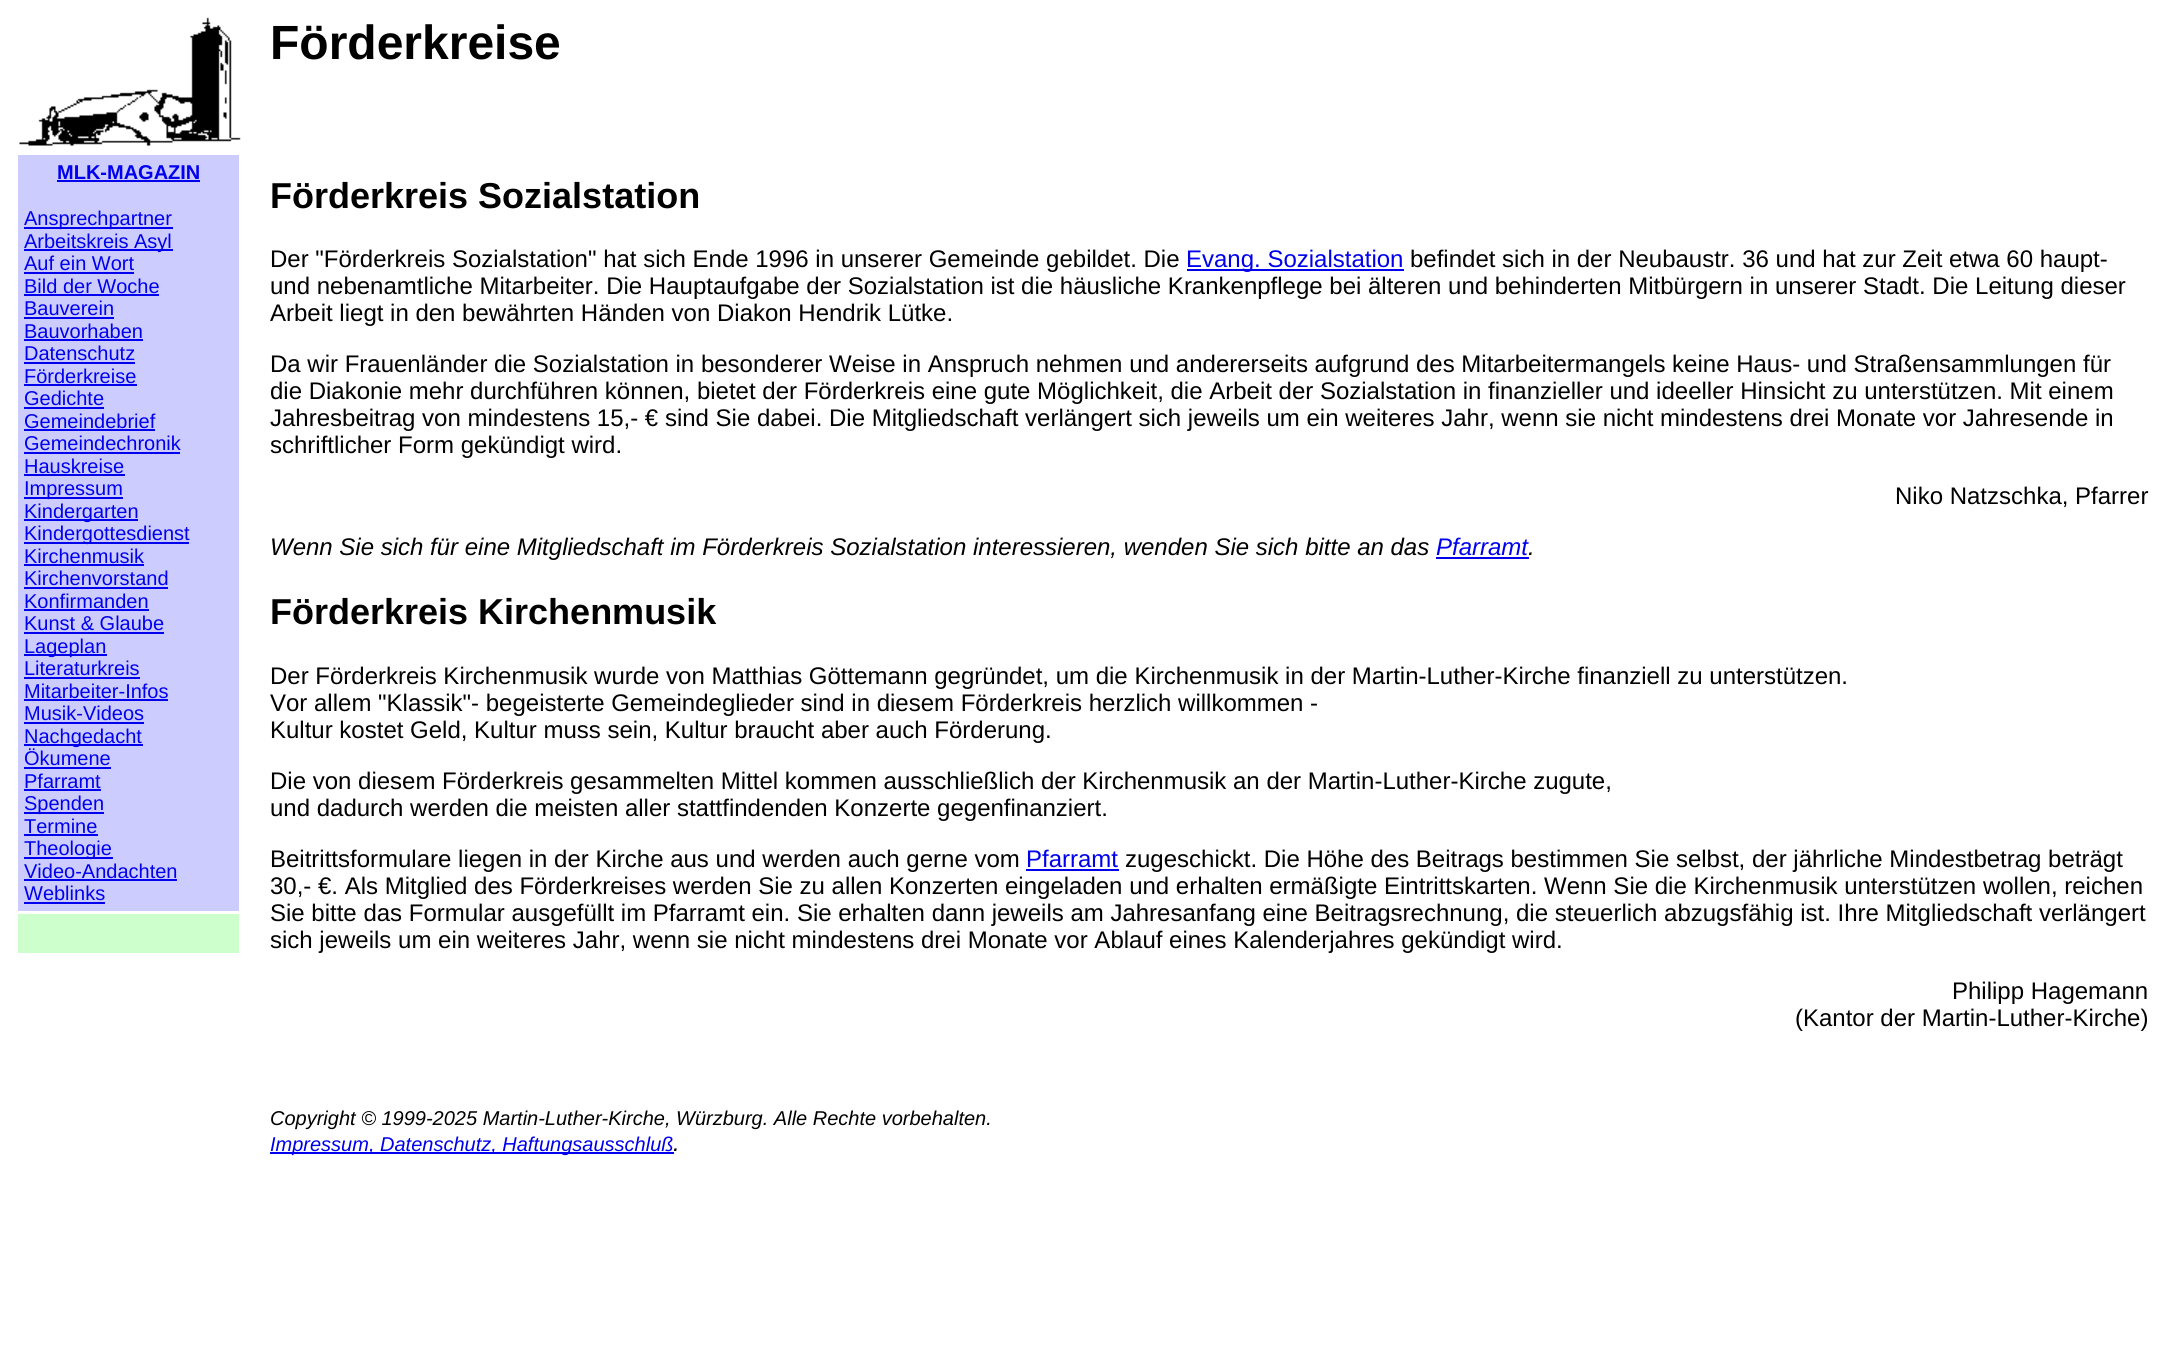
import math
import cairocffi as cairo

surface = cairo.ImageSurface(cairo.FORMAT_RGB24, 2163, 1358)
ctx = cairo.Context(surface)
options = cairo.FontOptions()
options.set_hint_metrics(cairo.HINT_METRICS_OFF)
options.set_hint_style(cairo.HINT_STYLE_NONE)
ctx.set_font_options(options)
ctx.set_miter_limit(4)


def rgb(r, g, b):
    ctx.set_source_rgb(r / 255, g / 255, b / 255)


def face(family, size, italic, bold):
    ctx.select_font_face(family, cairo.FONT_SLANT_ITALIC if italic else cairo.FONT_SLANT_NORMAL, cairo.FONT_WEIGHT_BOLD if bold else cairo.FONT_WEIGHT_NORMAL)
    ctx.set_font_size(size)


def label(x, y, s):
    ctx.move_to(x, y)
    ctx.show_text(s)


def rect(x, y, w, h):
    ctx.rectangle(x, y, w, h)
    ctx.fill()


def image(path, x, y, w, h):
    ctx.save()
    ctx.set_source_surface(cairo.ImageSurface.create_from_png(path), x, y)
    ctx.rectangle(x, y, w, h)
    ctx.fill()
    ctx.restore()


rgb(255, 255, 255)
ctx.paint()
image('image0.png', 19, 17, 222, 129)
rgb(204, 204, 255)
rect(18, 155, 221, 756)
face('Liberation Sans', 20, 0, 1)
rgb(0, 0, 238)
label(57, 179, 'MLK-MAGAZIN')
rect(57, 180, 143, 2)
rect(24, 227, 149, 2)
face('Liberation Sans', 20, 0, 0)
label(24, 225, 'Ansprechpartner')
rect(24, 249, 149, 2)
label(24, 248, 'Arbeitskreis Asyl')
label(24, 270, 'Auf ein Wort')
rect(24, 272, 110, 2)
label(24, 293, 'Bild der Woche')
rect(24, 294, 135, 2)
label(24, 315, 'Bauverein')
rect(24, 317, 90, 2)
label(24, 338, 'Bauvorhaben')
rect(24, 339, 119, 2)
label(24, 360, 'Datenschutz')
rect(24, 362, 111, 2)
label(24, 383, 'Förderkreise')
rect(24, 384, 113, 2)
label(24, 405, 'Gedichte')
rect(24, 407, 80, 2)
label(24, 428, 'Gemeindebrief')
rect(24, 429, 131, 2)
label(24, 450, 'Gemeindechronik')
rect(24, 452, 156, 2)
label(24, 473, 'Hauskreise')
rect(24, 474, 101, 2)
rect(24, 497, 99, 2)
label(24, 495, 'Impressum')
rect(24, 519, 114, 2)
label(24, 518, 'Kindergarten')
rect(24, 542, 165, 2)
label(24, 540, 'Kindergottesdienst')
label(24, 563, 'Kirchenmusik')
rect(24, 564, 120, 2)
label(24, 585, 'Kirchenvorstand')
rect(24, 587, 144, 2)
label(24, 608, 'Konfirmanden')
rect(24, 609, 125, 2)
label(24, 630, 'Kunst & Glaube')
rect(24, 632, 140, 2)
rect(24, 654, 83, 2)
label(24, 653, 'Lageplan')
label(24, 675, 'Literaturkreis')
rect(24, 677, 116, 2)
label(24, 698, 'Mitarbeiter-Infos')
rect(24, 699, 144, 2)
label(24, 720, 'Musik-Videos')
rect(24, 722, 120, 2)
rect(24, 744, 119, 2)
label(24, 743, 'Nachgedacht')
label(24, 765, 'Ökumene')
rect(24, 767, 87, 2)
label(24, 788, 'Pfarramt')
rect(24, 789, 77, 2)
rect(24, 812, 80, 2)
label(24, 810, 'Spenden')
label(24, 833, 'Termine')
rect(24, 834, 74, 2)
rect(24, 857, 89, 2)
label(24, 855, 'Theologie')
label(24, 878, 'Video-Andachten')
rect(24, 879, 153, 2)
label(24, 900, 'Weblinks')
rect(24, 902, 81, 2)
rgb(204, 255, 204)
rect(18, 914, 221, 39)
face('Liberation Sans', 48, 0, 1)
rgb(0, 0, 0)
label(270, 59, 'Förderkreise')
face('Liberation Sans', 36, 0, 1)
label(270, 208, 'Förderkreis Sozialstation')
face('Liberation Sans', 24, 0, 0)
label(270, 267, 'Der "Förderkreis Sozialstation" hat sich Ende 1996 in unserer Gemeinde gebildet. Die')
rgb(0, 0, 238)
rect(1187, 269, 217, 2)
label(1186, 267, 'Evang. Sozialstation')
rgb(0, 0, 0)
label(1410, 267, 'befindet sich in der Neubaustr. 36 und hat zur Zeit etwa 60 haupt-')
label(270, 294, 'und nebenamtliche Mitarbeiter. Die Hauptaufgabe der Sozialstation ist die häusliche Krankenpflege bei älteren und behinderten Mitbürgern in unserer Stadt. Die Leitung dieser')
label(270, 321, 'Arbeit liegt in den bewährten Händen von Diakon Hendrik Lütke.')
label(270, 372, 'Da wir Frauenländer die Sozialstation in besonderer Weise in Anspruch nehmen und andererseits aufgrund des Mitarbeitermangels keine Haus- und Straßensammlungen für')
label(270, 399, 'die Diakonie mehr durchführen können, bietet der Förderkreis eine gute Möglichkeit, die Arbeit der Sozialstation in finanzieller und ideeller Hinsicht zu unterstützen. Mit einem')
label(270, 426, 'Jahresbeitrag von mindestens 15,- € sind Sie dabei. Die Mitgliedschaft verlängert sich jeweils um ein weiteres Jahr, wenn sie nicht mindestens drei Monate vor Jahresende in')
label(270, 453, 'schriftlicher Form gekündigt wird.')
label(1895, 504, 'Niko Natzschka, Pfarrer')
face('Liberation Sans', 24, 1, 0)
label(270, 555, 'Wenn Sie sich für eine Mitgliedschaft im Förderkreis Sozialstation interessieren, wenden Sie sich bitte an das')
rgb(0, 0, 238)
label(1436, 555, 'Pfarramt')
rgb(0, 0, 0)
label(1528, 555, '.')
rgb(0, 0, 238)
rect(1436, 557, 93, 2)
face('Liberation Sans', 36, 0, 1)
rgb(0, 0, 0)
label(270, 624, 'Förderkreis Kirchenmusik')
face('Liberation Sans', 24, 0, 0)
label(270, 684, 'Der Förderkreis Kirchenmusik wurde von Matthias Göttemann gegründet, um die Kirchenmusik in der Martin-Luther-Kirche finanziell zu unterstützen.')
label(270, 711, 'Vor allem "Klassik"- begeisterte Gemeindeglieder sind in diesem Förderkreis herzlich willkommen -')
label(270, 738, 'Kultur kostet Geld, Kultur muss sein, Kultur braucht aber auch Förderung.')
label(270, 789, 'Die von diesem Förderkreis gesammelten Mittel kommen ausschließlich der Kirchenmusik an der Martin-Luther-Kirche zugute,')
label(270, 816, 'und dadurch werden die meisten aller stattfindenden Konzerte gegenfinanziert.')
label(270, 867, 'Beitrittsformulare liegen in der Kirche aus und werden auch gerne vom')
rgb(0, 0, 238)
label(1026, 867, 'Pfarramt')
rect(1026, 869, 93, 2)
rgb(0, 0, 0)
label(1125, 867, 'zugeschickt. Die Höhe des Beitrags bestimmen Sie selbst, der jährliche Mindestbetrag beträgt')
label(270, 894, '30,- €. Als Mitglied des Förderkreises werden Sie zu allen Konzerten eingeladen und erhalten ermäßigte Eintrittskarten. Wenn Sie die Kirchenmusik unterstützen wollen, reichen')
label(270, 921, 'Sie bitte das Formular ausgefüllt im Pfarramt ein. Sie erhalten dann jeweils am Jahresanfang eine Beitragsrechnung, die steuerlich abzugsfähig ist. Ihre Mitgliedschaft verlängert')
label(270, 948, 'sich jeweils um ein weiteres Jahr, wenn sie nicht mindestens drei Monate vor Ablauf eines Kalenderjahres gekündigt wird.')
label(1952, 999, 'Philipp Hagemann')
label(1795, 1026, '(Kantor der Martin-Luther-Kirche)')
face('Liberation Sans', 20, 1, 0)
label(270, 1125, 'Copyright © 1999-2025 Martin-Luther-Kirche, Würzburg. Alle Rechte vorbehalten.')
rgb(0, 0, 238)
rect(270, 1152, 404, 2)
label(270, 1151, 'Impressum, Datenschutz, Haftungsausschluß')
face('Liberation Sans', 24, 1, 0)
rgb(0, 0, 0)
label(673, 1151, '.')
surface.write_to_png('render.png')
